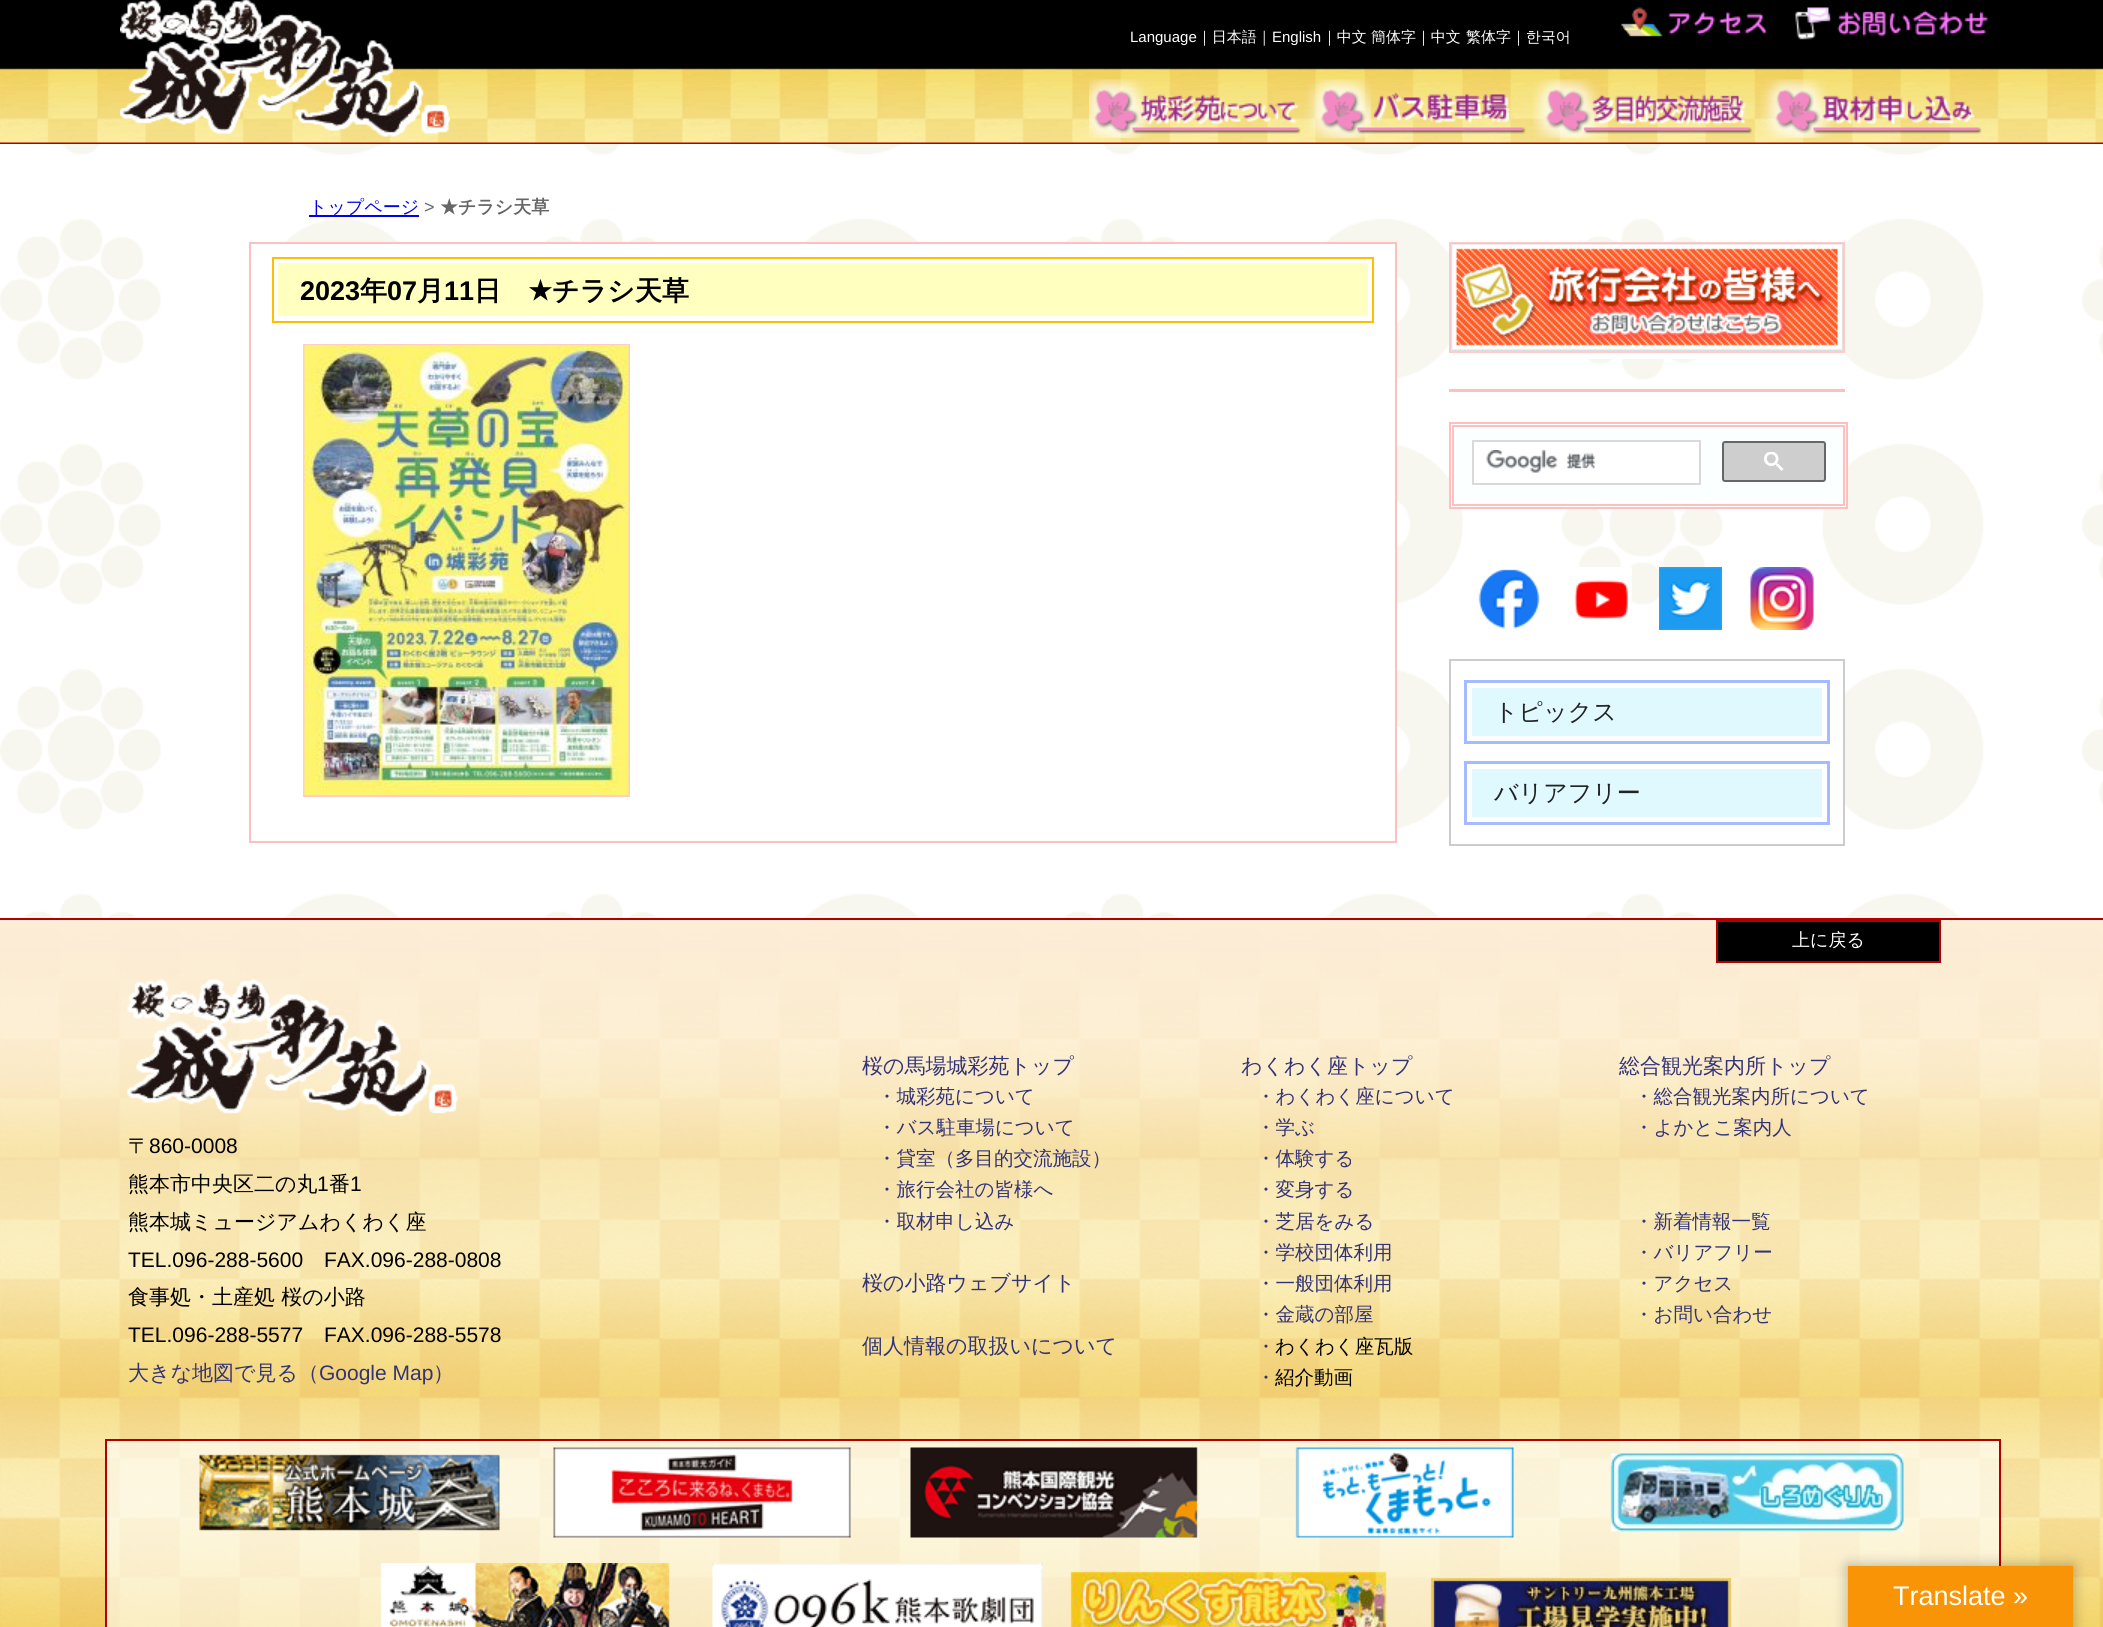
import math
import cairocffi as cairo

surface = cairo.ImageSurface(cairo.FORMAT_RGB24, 2103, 1627)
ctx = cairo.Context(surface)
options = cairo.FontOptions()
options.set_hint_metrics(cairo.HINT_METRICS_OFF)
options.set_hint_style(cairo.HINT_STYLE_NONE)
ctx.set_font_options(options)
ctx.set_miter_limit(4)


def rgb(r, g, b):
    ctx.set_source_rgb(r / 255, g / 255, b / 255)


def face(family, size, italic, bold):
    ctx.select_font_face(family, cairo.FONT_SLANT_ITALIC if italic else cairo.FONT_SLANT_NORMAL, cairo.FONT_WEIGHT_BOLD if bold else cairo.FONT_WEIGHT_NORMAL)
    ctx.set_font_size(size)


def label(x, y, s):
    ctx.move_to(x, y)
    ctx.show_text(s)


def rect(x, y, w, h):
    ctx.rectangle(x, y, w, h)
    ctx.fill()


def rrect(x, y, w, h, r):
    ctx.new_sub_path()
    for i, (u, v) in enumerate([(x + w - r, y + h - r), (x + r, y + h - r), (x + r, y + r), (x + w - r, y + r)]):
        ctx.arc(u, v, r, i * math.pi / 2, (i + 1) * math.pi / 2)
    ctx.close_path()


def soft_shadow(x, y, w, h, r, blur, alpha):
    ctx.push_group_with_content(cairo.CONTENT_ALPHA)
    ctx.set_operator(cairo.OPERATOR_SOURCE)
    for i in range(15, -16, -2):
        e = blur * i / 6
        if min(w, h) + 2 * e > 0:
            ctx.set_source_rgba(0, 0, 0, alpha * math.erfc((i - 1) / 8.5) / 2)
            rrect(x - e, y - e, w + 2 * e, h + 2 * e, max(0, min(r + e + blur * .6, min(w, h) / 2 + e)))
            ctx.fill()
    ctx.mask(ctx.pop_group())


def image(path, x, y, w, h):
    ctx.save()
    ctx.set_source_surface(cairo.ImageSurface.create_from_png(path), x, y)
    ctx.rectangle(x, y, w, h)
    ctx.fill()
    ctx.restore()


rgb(255, 255, 255)
ctx.paint()
image('image0.png', 0, 144, 2103, 774)
rgb(0, 0, 0)
rect(0, 0, 2103, 68)
image('image1.png', 0, 68, 2103, 76)
image('image2.png', 120, 0, 330, 137)
face('Liberation Sans', 15, 0, 0)
rgb(255, 255, 255)
label(1130, 42, 'Language')
face('WenQuanYi Zen Hei Medium', 15, 0, 0)
label(1197, 42, '｜日本語｜')
face('Liberation Sans', 15, 0, 0)
label(1272, 42, 'English')
face('WenQuanYi Zen Hei Medium', 15, 0, 0)
label(1322, 42, '｜中文')
label(1371, 42, '簡体字｜中文')
label(1466, 42, '繁体字｜한국어')
image('image3.png', 1621, 7, 146, 30)
image('image4.png', 1795, 7, 193, 33)
image('image5.png', 1089, 79, 219, 59)
image('image6.png', 1308, 79, 225, 59)
image('image7.png', 1533, 79, 219, 59)
image('image8.png', 1760, 79, 222, 59)
rgb(0, 0, 238)
rect(309, 215, 110, 2)
face('WenQuanYi Zen Hei Medium', 18, 0, 0)
label(309, 213, 'トップページ')
face('Liberation Sans', 18, 0, 0)
rgb(102, 102, 102)
label(424, 213, '>')
face('WenQuanYi Zen Hei', 18, 0, 1)
label(440, 213, '★チラシ天草')
rgb(255, 255, 255)
rect(261, 244, 1134, 586)
ctx.rectangle(250, 243, 1146, 599)
rgb(255, 191, 190)
ctx.stroke()
rgb(255, 255, 191)
rect(278, 263, 1090, 53)
ctx.rectangle(273, 258, 1100, 64)
rgb(255, 191, 0)
ctx.stroke()
face('Liberation Sans', 27, 0, 1)
rgb(0, 0, 0)
label(300, 300, '2023')
face('WenQuanYi Zen Hei', 27, 0, 1)
label(360, 300, '年')
face('Liberation Sans', 27, 0, 1)
label(387, 300, '07')
face('WenQuanYi Zen Hei', 27, 0, 1)
label(417, 300, '月')
face('Liberation Sans', 27, 0, 1)
label(444, 300, '11')
face('WenQuanYi Zen Hei', 27, 0, 1)
label(474, 300, '日')
face('DejaVu Sans', 27, 0, 1)
label(528, 300, '★')
face('WenQuanYi Zen Hei', 27, 0, 1)
label(552, 300, 'チラシ天草')
ctx.rectangle(304, 345, 325, 451)
rgb(255, 204, 204)
ctx.stroke()
image('image9.png', 304, 345, 325, 450)
rgb(255, 255, 255)
rect(1449, 244, 393, 115)
ctx.rectangle(1450, 243, 394, 109)
rgb(255, 204, 204)
ctx.stroke()
image('image10.png', 1450, 243, 394, 108)
rgb(255, 191, 191)
rect(1449, 389, 396, 3)
rgb(252, 255, 255)
ctx.rectangle(1450, 423, 397, 85)
ctx.fill_preserve()
rgb(255, 191, 191)
ctx.stroke()
ctx.rectangle(1453, 426, 391, 79)
ctx.stroke()
rgb(255, 255, 255)
ctx.rectangle(1473, 441, 227, 43)
ctx.fill_preserve()
rgb(217, 217, 217)
ctx.stroke()
image('image11.png', 1486, 450, 110, 23)
rgb(206, 206, 206)
rrect(1723, 442, 102, 39, 2)
ctx.fill_preserve()
rgb(102, 102, 102)
ctx.stroke()
image('image12.png', 1764, 452, 20, 19)
image('image13.png', 1478, 569, 62, 60)
image('image14.png', 1574, 567, 58, 52)
image('image15.png', 1659, 567, 63, 63)
image('image16.png', 1750, 567, 64, 63)
rgb(255, 255, 255)
rect(1451, 669, 392, 161)
ctx.rectangle(1450, 660, 394, 185)
rgb(204, 204, 204)
ctx.stroke()
rgb(223, 249, 255)
rect(1472, 688, 350, 48)
ctx.rectangle(1465.5, 681.5, 363, 61)
rgb(164, 187, 255)
ctx.set_line_width(3)
ctx.stroke()
face('WenQuanYi Zen Hei Medium', 24, 0, 0)
rgb(34, 34, 34)
label(1494, 720, 'トピックス')
rgb(223, 249, 255)
rect(1472, 769, 350, 48)
ctx.rectangle(1465.5, 762.5, 363, 61)
rgb(164, 187, 255)
ctx.stroke()
rgb(34, 34, 34)
label(1494, 801, 'バリアフリー')
image('image17.png', 0, 920, 2103, 707)
rgb(178, 0, 0)
rect(0, 918, 2103, 2)
rgb(0, 0, 0)
ctx.rectangle(1717, 921, 223, 41)
ctx.fill_preserve()
rgb(178, 0, 0)
ctx.set_line_width(2)
ctx.stroke()
face('WenQuanYi Zen Hei Medium', 18, 0, 0)
rgb(255, 255, 255)
label(1792, 946, '上に戻る')
image('image18.png', 127, 979, 331, 137)
face('WenQuanYi Zen Hei Medium', 21, 0, 0)
rgb(0, 0, 0)
label(128, 1153, '〒')
face('Liberation Sans', 21, 0, 0)
label(149, 1153, '860-0008')
face('WenQuanYi Zen Hei Medium', 21, 0, 0)
label(128, 1191, '熊本市中央区二の丸')
face('Liberation Sans', 21, 0, 0)
label(317, 1191, '1')
face('WenQuanYi Zen Hei Medium', 21, 0, 0)
label(329, 1191, '番')
face('Liberation Sans', 21, 0, 0)
label(350, 1191, '1')
face('WenQuanYi Zen Hei Medium', 21, 0, 0)
label(128, 1229, '熊本城ミュージアムわくわく座')
face('Liberation Sans', 21, 0, 0)
label(128, 1267, 'TEL.096-288-5600')
label(324, 1267, 'FAX.096-288-0808')
face('WenQuanYi Zen Hei Medium', 21, 0, 0)
label(128, 1304, '食事処・土産処 桜の小路')
face('Liberation Sans', 21, 0, 0)
label(128, 1342, 'TEL.096-288-5577')
label(324, 1342, 'FAX.096-288-5578')
face('WenQuanYi Zen Hei Medium', 21, 0, 0)
rgb(51, 51, 119)
label(128, 1380, '大きな地図で見る（')
face('Liberation Sans', 21, 0, 0)
label(319, 1380, 'Google Map')
face('WenQuanYi Zen Hei Medium', 21, 0, 0)
label(433, 1380, '）')
label(862, 1073, '桜の馬場城彩苑トップ')
label(1241, 1073, 'わくわく座トップ')
label(1619, 1073, '総合観光案内所トップ')
face('WenQuanYi Zen Hei Medium', 19.5, 0, 0)
label(877, 1103, '・城彩苑について')
label(1256, 1103, '・わくわく座について')
label(1634, 1103, '・総合観光案内所について')
label(877, 1134, '・バス駐車場について')
label(1256, 1134, '・学ぶ')
label(1634, 1134, '・よかとこ案内人')
label(877, 1165, '・貸室（多目的交流施設）')
label(1256, 1165, '・体験する')
label(877, 1196, '・旅行会社の皆様へ')
label(1256, 1196, '・変身する')
label(877, 1228, '・取材申し込み')
label(1256, 1228, '・芝居をみる')
label(1634, 1228, '・新着情報一覧')
label(1256, 1259, '・学校団体利用')
label(1634, 1259, '・バリアフリー')
face('WenQuanYi Zen Hei Medium', 21, 0, 0)
label(862, 1290, '桜の小路ウェブサイト')
face('WenQuanYi Zen Hei Medium', 19.5, 0, 0)
label(1256, 1290, '・一般団体利用')
label(1634, 1290, '・アクセス')
label(1256, 1321, '・金蔵の部屋')
label(1634, 1321, '・お問い合わせ')
face('WenQuanYi Zen Hei Medium', 21, 0, 0)
label(862, 1353, '個人情報の取扱いについて')
face('WenQuanYi Zen Hei Medium', 19.5, 0, 0)
label(1256, 1353, '・')
rgb(0, 0, 0)
label(1275, 1353, 'わくわく座瓦版')
rgb(51, 51, 119)
label(1256, 1384, '・')
rgb(0, 0, 0)
label(1275, 1384, '紹介動画')
ctx.set_source_rgba(1, 1, 1, 0.6)
ctx.rectangle(106, 1440, 1894, 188)
ctx.fill_preserve()
rgb(178, 0, 0)
ctx.stroke()
image('image19.png', 199, 1454, 301, 77)
image('image20.png', 553, 1447, 298, 91)
image('image21.png', 910, 1447, 288, 91)
image('image22.png', 1295, 1447, 219, 91)
image('image23.png', 1610, 1453, 294, 79)
image('image24.png', 380, 1563, 290, 64)
image('image25.png', 712, 1563, 331, 64)
image('image26.png', 1070, 1571, 317, 56)
image('image27.png', 1430, 1577, 302, 50)
rgb(0, 0, 0)
soft_shadow(1848, 1566, 225, 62, 0, 7, 0.3)
rgb(248, 148, 6)
rect(1848, 1566, 225, 61)
face('Liberation Sans', 27, 0, 0)
rgb(255, 255, 255)
label(1893, 1605, 'Translate »')
surface.write_to_png('render.png')
